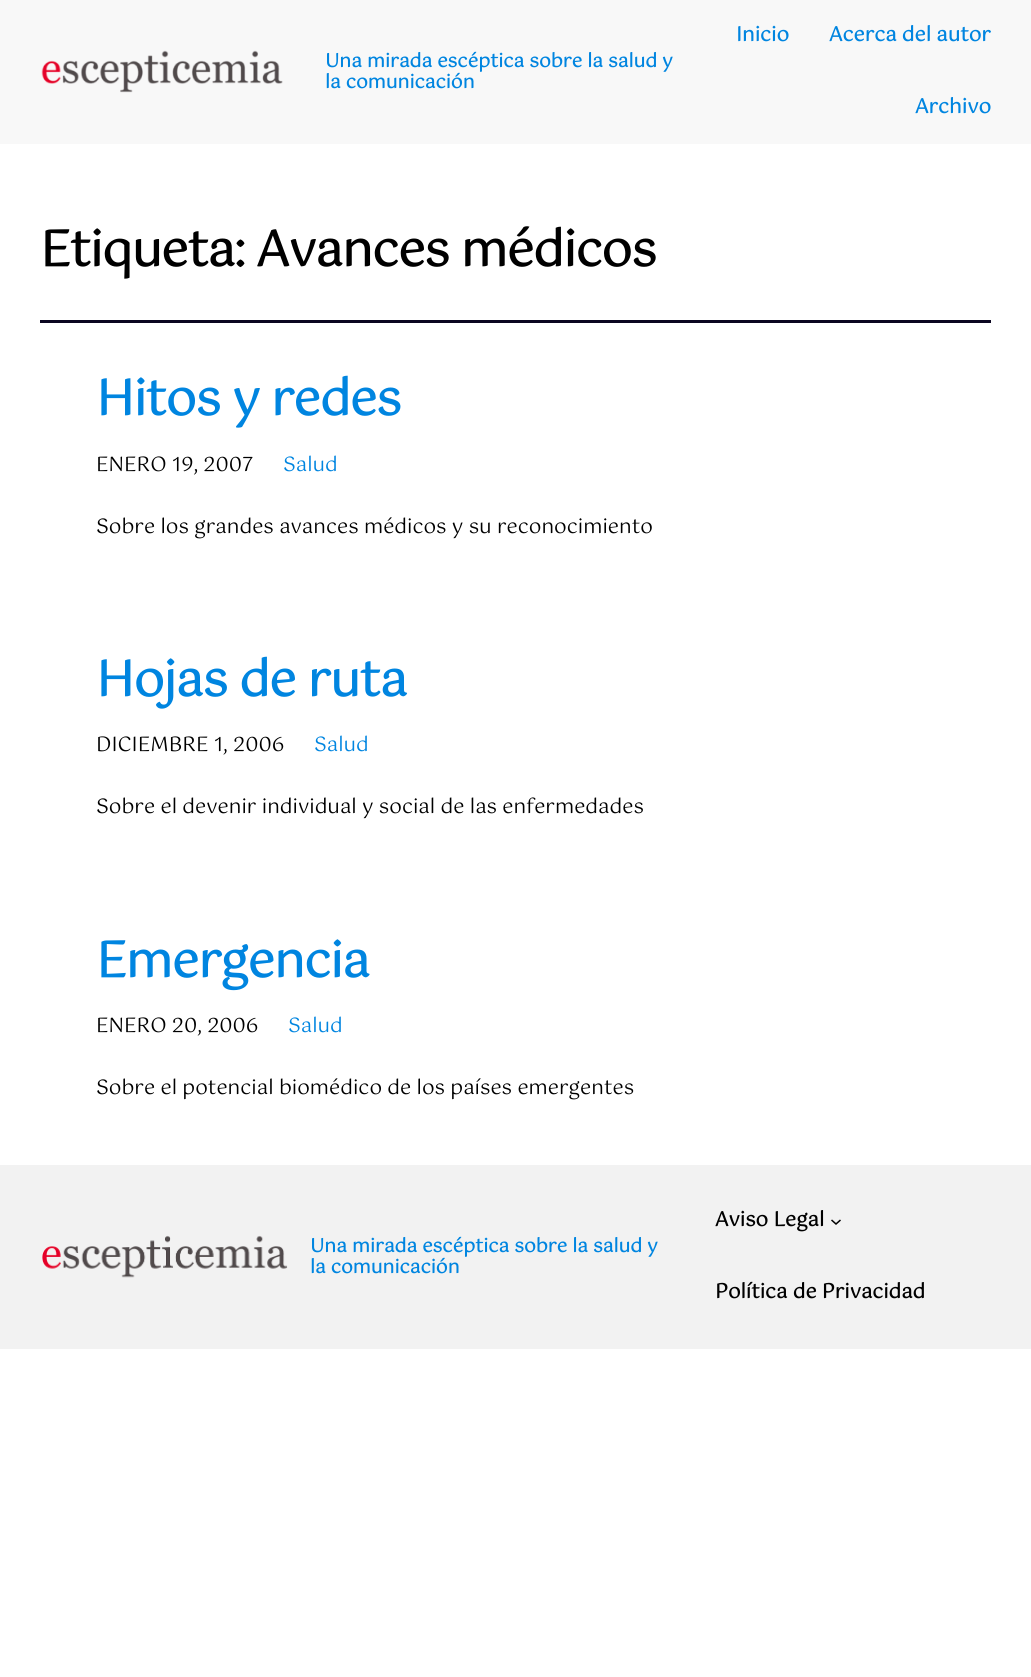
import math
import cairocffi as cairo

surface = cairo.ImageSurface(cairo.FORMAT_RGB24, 1031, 1677)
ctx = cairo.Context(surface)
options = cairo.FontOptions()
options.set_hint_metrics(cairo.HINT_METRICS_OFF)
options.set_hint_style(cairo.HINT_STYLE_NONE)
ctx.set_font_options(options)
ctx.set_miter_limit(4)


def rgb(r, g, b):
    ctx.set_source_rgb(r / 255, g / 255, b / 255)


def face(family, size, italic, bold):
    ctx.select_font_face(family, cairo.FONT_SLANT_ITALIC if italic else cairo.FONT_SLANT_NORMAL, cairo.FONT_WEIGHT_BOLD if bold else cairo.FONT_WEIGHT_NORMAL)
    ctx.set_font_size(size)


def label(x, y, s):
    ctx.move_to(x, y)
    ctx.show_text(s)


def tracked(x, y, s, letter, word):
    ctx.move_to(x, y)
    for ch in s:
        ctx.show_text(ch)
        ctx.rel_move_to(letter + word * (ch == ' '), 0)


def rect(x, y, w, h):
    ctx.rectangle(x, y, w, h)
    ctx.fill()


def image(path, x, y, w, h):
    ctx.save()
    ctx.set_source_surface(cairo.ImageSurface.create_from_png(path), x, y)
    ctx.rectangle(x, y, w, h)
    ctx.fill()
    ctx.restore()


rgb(255, 255, 255)
ctx.paint()
rgb(248, 248, 248)
rect(0, 0, 1031, 144)
image('image0.png', 41, 50, 242, 43)
face('Gotu', 18.8, 0, 1)
rgb(0, 133, 224)
label(325, 67, 'Una mirada escéptica sobre la salud y')
label(325, 88, 'la comunicación')
face('Gotu', 20, 0, 1)
label(736, 41, 'Inicio')
label(829, 41, 'Acerca del autor')
label(915, 113, 'Archivo')
face('Gotu', 49.1, 0, 1)
rgb(0, 0, 0)
tracked(40, 266, 'Etiqueta: Avances médicos', -1, 0)
rgb(11, 6, 32)
rect(40, 320, 951, 3)
rgb(0, 133, 224)
tracked(96, 415, 'Hitos y redes', -1, 0)
face('Gotu', 20, 0, 0)
rgb(0, 0, 0)
label(96, 471, 'ENERO 19, 2007')
rgb(0, 133, 224)
label(283, 471, 'Salud')
face('Gotu', 20.1, 0, 0)
rgb(0, 0, 0)
label(96, 533, 'Sobre los grandes avances médicos y su reconocimiento')
face('Gotu', 49.1, 0, 1)
rgb(0, 133, 224)
tracked(96, 696, 'Hojas de ruta', -1, 0)
face('Gotu', 20, 0, 0)
rgb(0, 0, 0)
label(96, 751, 'DICIEMBRE 1, 2006')
rgb(0, 133, 224)
label(314, 751, 'Salud')
face('Gotu', 20.1, 0, 0)
rgb(0, 0, 0)
label(96, 813, 'Sobre el devenir individual y social de las enfermedades')
face('Gotu', 49.1, 0, 1)
rgb(0, 133, 224)
tracked(96, 977, 'Emergencia', -1, 0)
face('Gotu', 20, 0, 0)
rgb(0, 0, 0)
label(96, 1032, 'ENERO 20, 2006')
rgb(0, 133, 224)
label(288, 1032, 'Salud')
face('Gotu', 20.1, 0, 0)
rgb(0, 0, 0)
label(96, 1094, 'Sobre el potencial biomédico de los países emergentes')
rgb(242, 242, 242)
rect(0, 1165, 1031, 184)
image('image1.png', 42, 1235, 246, 43)
face('Gotu', 18.8, 0, 1)
rgb(0, 133, 224)
label(310, 1252, 'Una mirada escéptica sobre la salud y')
label(310, 1273, 'la comunicación')
face('Gotu', 20, 0, 1)
rgb(0, 0, 0)
label(715, 1226, 'Aviso Legal')
ctx.new_path()
ctx.move_to(831.5, 1220)
ctx.line_to(836, 1224)
ctx.line_to(840.5, 1220)
ctx.set_line_width(1.5)
ctx.stroke()
label(715, 1298, 'Política de Privacidad')
surface.write_to_png('render.png')
